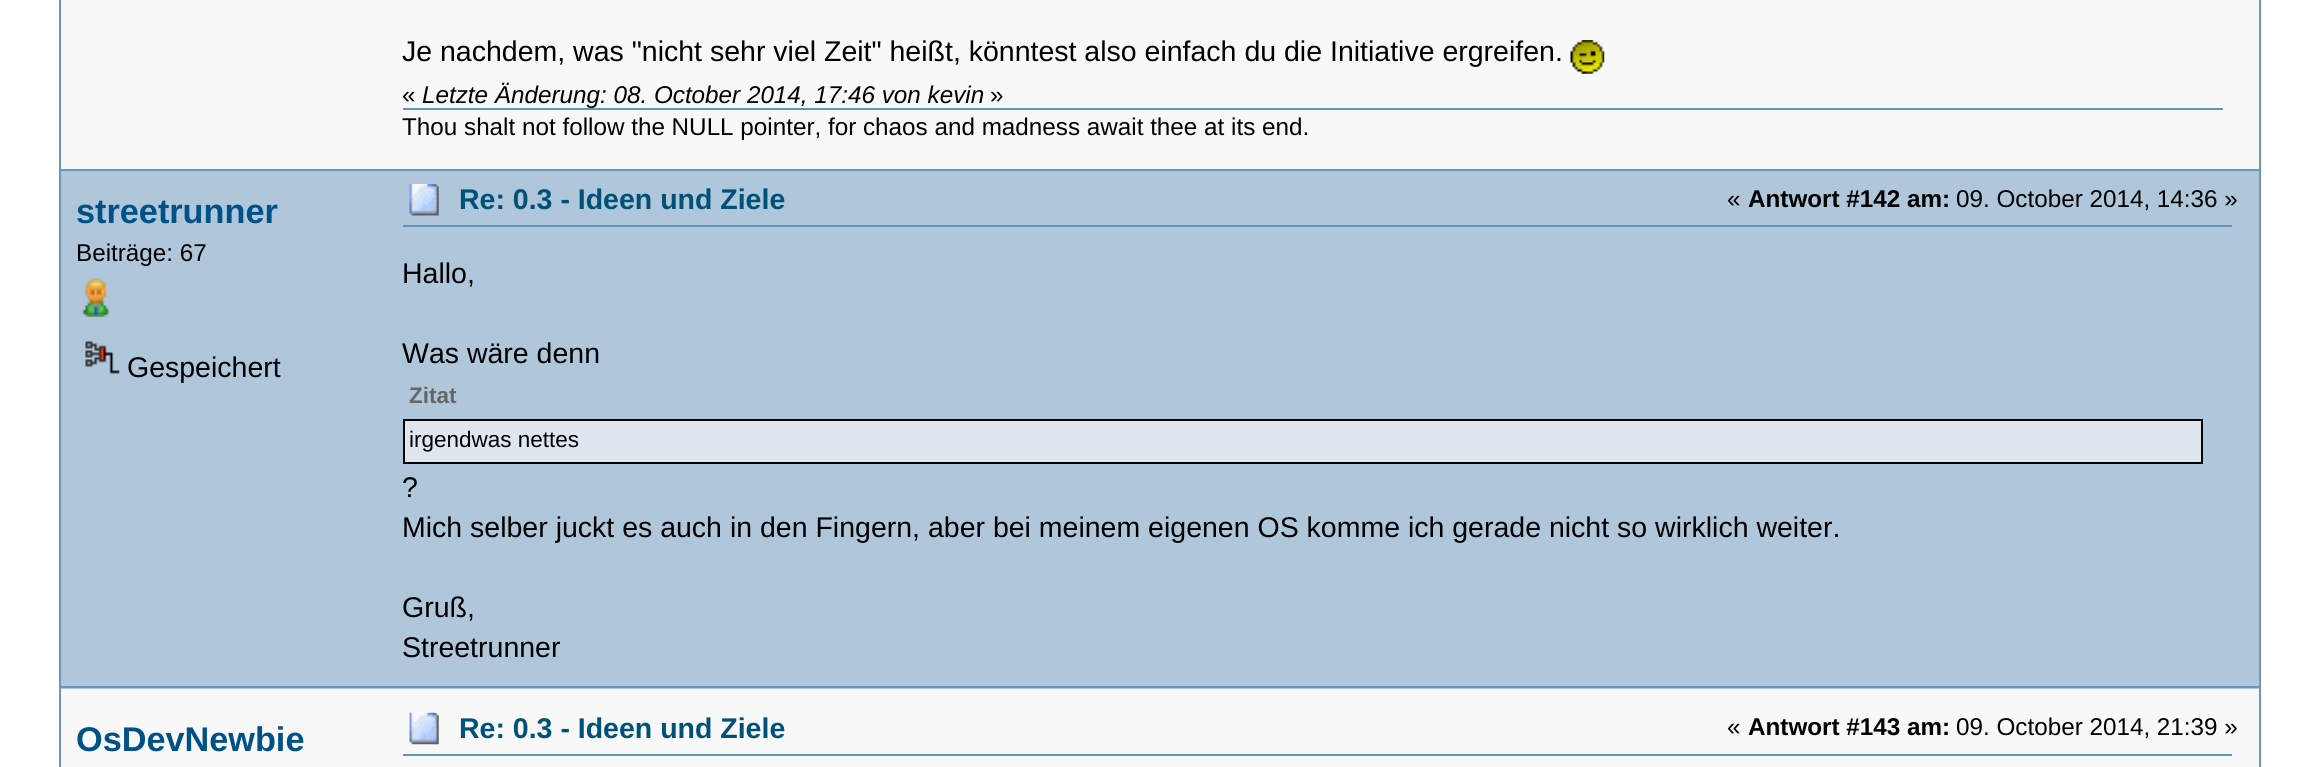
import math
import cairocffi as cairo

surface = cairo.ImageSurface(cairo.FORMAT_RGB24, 2319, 767)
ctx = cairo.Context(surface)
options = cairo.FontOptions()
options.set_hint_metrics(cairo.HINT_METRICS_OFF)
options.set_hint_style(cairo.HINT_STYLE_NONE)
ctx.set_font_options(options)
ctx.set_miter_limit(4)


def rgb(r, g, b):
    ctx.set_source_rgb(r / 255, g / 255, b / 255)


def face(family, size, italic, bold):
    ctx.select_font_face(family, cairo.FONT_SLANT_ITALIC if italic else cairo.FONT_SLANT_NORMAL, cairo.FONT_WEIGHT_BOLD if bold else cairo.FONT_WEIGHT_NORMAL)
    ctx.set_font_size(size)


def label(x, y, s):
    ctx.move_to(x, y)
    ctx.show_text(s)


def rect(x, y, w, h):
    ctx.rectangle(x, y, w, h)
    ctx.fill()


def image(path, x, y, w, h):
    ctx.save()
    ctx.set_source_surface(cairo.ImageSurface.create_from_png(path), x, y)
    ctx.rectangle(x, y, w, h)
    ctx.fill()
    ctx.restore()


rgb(255, 255, 255)
ctx.paint()
rgb(248, 248, 248)
rect(61, 0, 2198, 169)
rgb(110, 148, 183)
rect(2259, 0, 2, 185)
rect(59, 169, 2202, 2)
rect(59, 0, 2, 185)
face('Liberation Sans', 28.5, 0, 0)
rgb(0, 0, 0)
label(402, 61, 'Je nachdem, was "nicht sehr viel Zeit" heißt, könntest also einfach du die Initiative ergreifen.')
image('image0.png', 1570, 40, 35, 34)
face('Liberation Sans', 24.25, 0, 0)
label(402, 103, '«')
face('Liberation Sans', 24.25, 1, 0)
label(422, 103, 'Letzte Änderung: 08. October 2014, 17:46 von kevin')
face('Liberation Sans', 24.25, 0, 0)
label(990, 103, '»')
rgb(99, 148, 189)
rect(403, 108, 1820, 2)
rgb(0, 0, 0)
label(402, 135, 'Thou shalt not follow the NULL pointer, for chaos and madness await thee at its end.')
rgb(175, 198, 219)
rect(61, 171, 2198, 518)
rgb(110, 148, 183)
rect(2259, 185, 2, 582)
rect(59, 686, 2202, 2)
rect(59, 185, 2, 582)
face('Liberation Sans', 34.25, 0, 1)
rgb(0, 81, 136)
label(76, 223, 'streetrunner')
face('Liberation Sans', 24.25, 0, 0)
rgb(0, 0, 0)
label(76, 261, 'Beiträge: 67')
image('image1.png', 82, 278, 27, 39)
image('image2.png', 85, 341, 35, 33)
face('Liberation Sans', 28.5, 0, 0)
label(127, 377, 'Gespeichert')
image('image3.png', 409, 184, 30, 32)
face('Liberation Sans', 28.5, 0, 1)
rgb(0, 81, 119)
label(459, 209, 'Re: 0.3 - Ideen und Ziele')
face('Liberation Sans', 24.25, 0, 0)
rgb(0, 0, 0)
label(1727, 207, '«')
face('Liberation Sans', 24.25, 0, 1)
label(1748, 207, 'Antwort #142 am:')
face('Liberation Sans', 24.25, 0, 0)
label(1956, 207, '09. October 2014, 14:36 »')
rgb(99, 148, 189)
rect(403, 225, 1829, 2)
face('Liberation Sans', 28.5, 0, 0)
rgb(0, 0, 0)
label(402, 283, 'Hallo,')
label(402, 363, 'Was wäre denn')
face('Liberation Sans', 22.5, 0, 1)
rgb(102, 102, 102)
label(409, 403, 'Zitat')
rgb(222, 231, 239)
ctx.rectangle(404, 420, 1798, 43)
ctx.fill_preserve()
rgb(0, 0, 0)
ctx.stroke()
face('Liberation Sans', 22.5, 0, 0)
label(409, 447, 'irgendwas nettes')
face('Liberation Sans', 28.5, 0, 0)
label(402, 497, '?')
label(402, 537, 'Mich selber juckt es auch in den Fingern, aber bei meinem eigenen OS komme ich gerade nicht so wirklich weiter.')
label(402, 617, 'Gruß,')
label(402, 657, 'Streetrunner')
rgb(248, 248, 248)
rect(61, 689, 2198, 78)
face('Liberation Sans', 34.25, 0, 1)
rgb(0, 81, 136)
label(76, 751, 'OsDevNewbie')
image('image4.png', 409, 712, 30, 33)
face('Liberation Sans', 28.5, 0, 1)
rgb(0, 81, 119)
label(459, 738, 'Re: 0.3 - Ideen und Ziele')
face('Liberation Sans', 24.25, 0, 0)
rgb(0, 0, 0)
label(1727, 735, '«')
face('Liberation Sans', 24.25, 0, 1)
label(1748, 735, 'Antwort #143 am:')
face('Liberation Sans', 24.25, 0, 0)
label(1956, 735, '09. October 2014, 21:39 »')
rgb(99, 148, 189)
rect(403, 754, 1829, 2)
surface.write_to_png('render.png')
